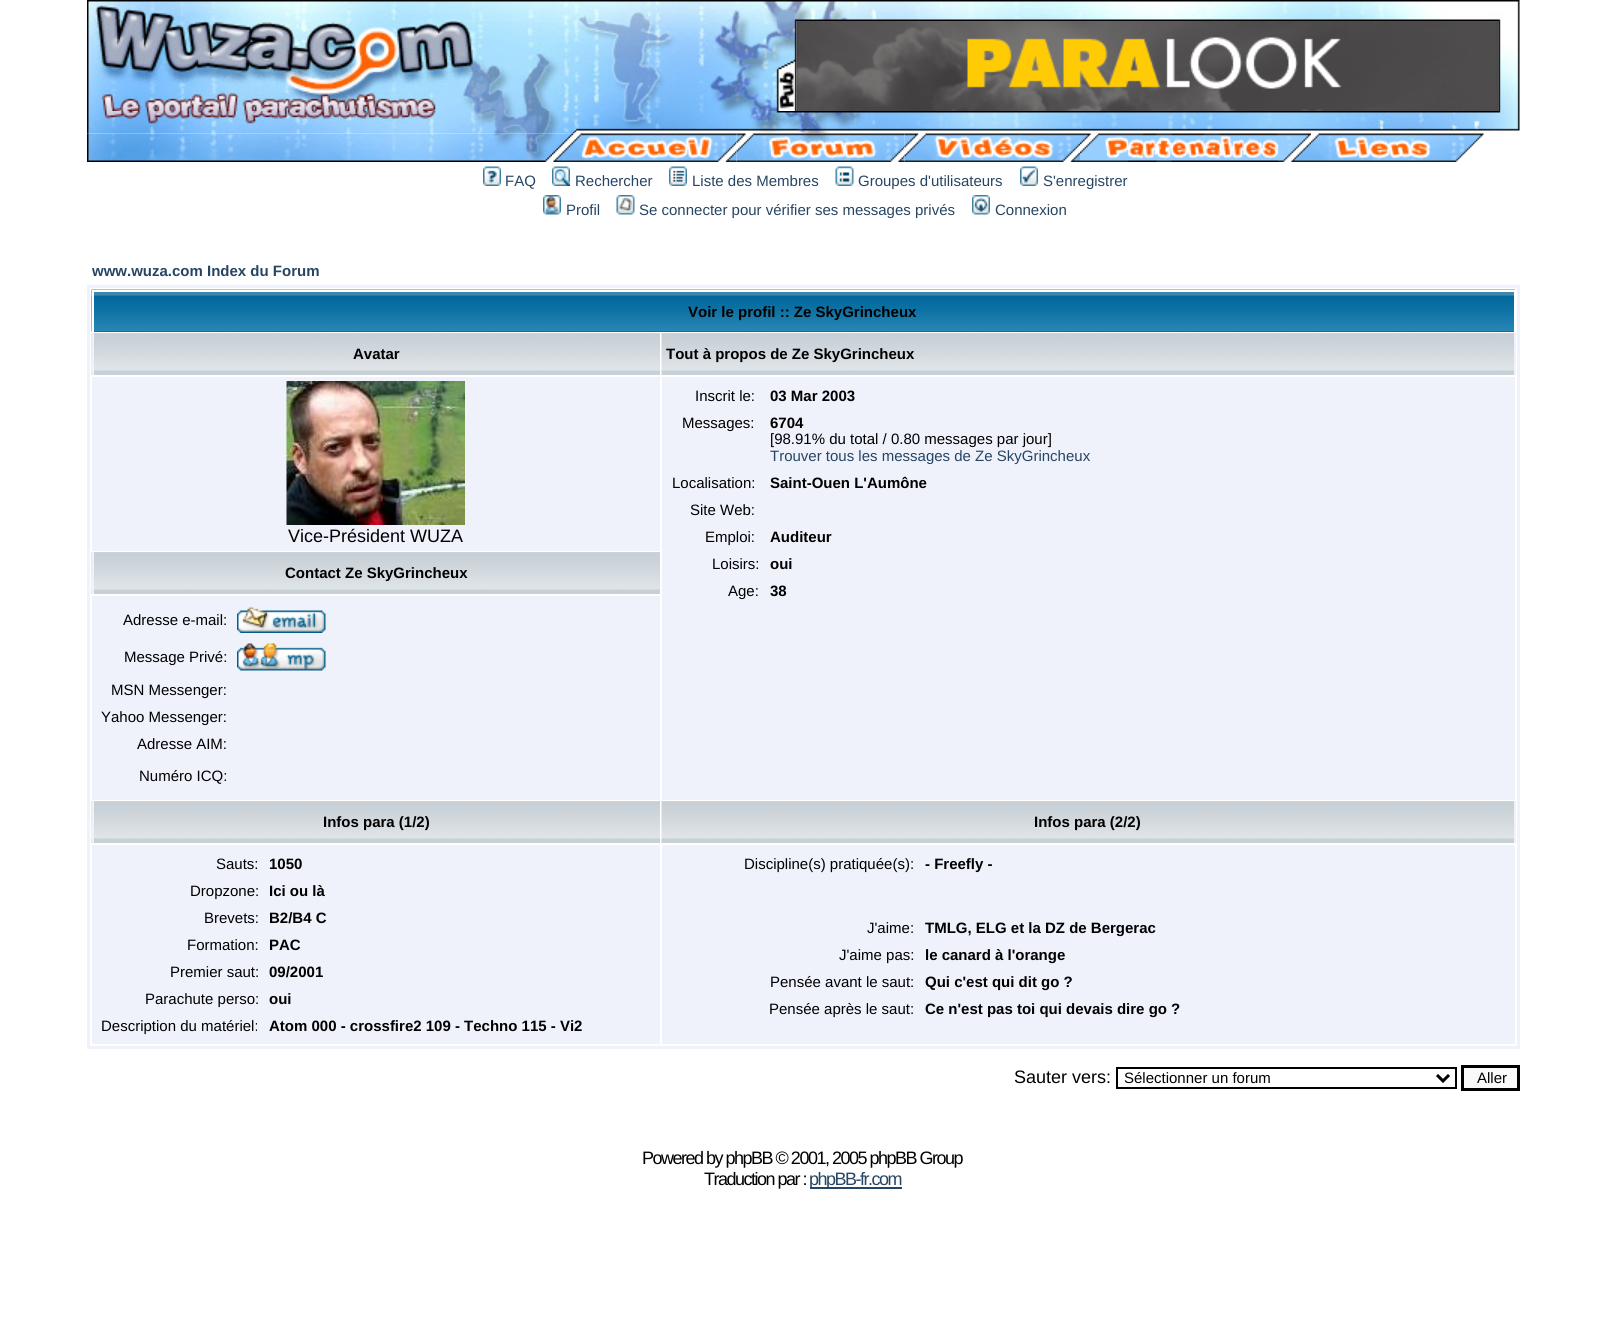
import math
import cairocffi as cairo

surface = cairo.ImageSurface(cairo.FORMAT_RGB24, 1605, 1324)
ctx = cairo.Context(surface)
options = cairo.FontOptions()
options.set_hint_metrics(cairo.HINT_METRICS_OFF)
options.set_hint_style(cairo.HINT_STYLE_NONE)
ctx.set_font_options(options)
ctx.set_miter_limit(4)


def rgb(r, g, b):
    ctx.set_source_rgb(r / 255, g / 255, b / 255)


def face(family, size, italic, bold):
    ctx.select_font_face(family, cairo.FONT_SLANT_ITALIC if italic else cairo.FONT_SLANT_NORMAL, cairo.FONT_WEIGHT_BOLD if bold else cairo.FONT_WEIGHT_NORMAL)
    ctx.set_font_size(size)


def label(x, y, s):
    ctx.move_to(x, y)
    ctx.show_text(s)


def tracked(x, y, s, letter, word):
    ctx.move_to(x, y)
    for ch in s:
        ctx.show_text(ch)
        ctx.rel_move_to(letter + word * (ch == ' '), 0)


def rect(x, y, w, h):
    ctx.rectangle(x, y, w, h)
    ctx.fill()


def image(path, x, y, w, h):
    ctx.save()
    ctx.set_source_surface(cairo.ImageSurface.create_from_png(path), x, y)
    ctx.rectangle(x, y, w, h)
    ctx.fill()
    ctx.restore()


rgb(255, 255, 255)
ctx.paint()
image('image0.png', 87, 0, 1433, 21)
image('image1.png', 87, 21, 710, 90)
image('image2.png', 796, 21, 703, 90)
image('image3.png', 1498, 21, 22, 90)
image('image5.png', 87, 133, 465, 29)
image('image4.png', 87, 111, 1433, 23)
image('image6.png', 552, 133, 185, 29)
image('image7.png', 736, 133, 169, 29)
image('image8.png', 904, 133, 176, 29)
image('image9.png', 1080, 133, 231, 29)
image('image10.png', 1311, 133, 173, 29)
image('image11.png', 483, 166, 18, 20)
face('Liberation Sans', 15, 0, 0)
rgb(38, 69, 99)
label(505, 186, 'FAQ')
image('image12.png', 552, 166, 18, 20)
label(575, 186, 'Rechercher')
image('image13.png', 669, 166, 18, 20)
label(692, 186, 'Liste des Membres')
image('image14.png', 835, 166, 19, 20)
label(858, 186, 'Groupes d\'utilisateurs')
image('image15.png', 1020, 166, 18, 20)
label(1043, 186, 'S\'enregistrer')
image('image16.png', 543, 195, 18, 20)
label(566, 215, 'Profil')
image('image17.png', 616, 195, 19, 20)
label(639, 215, 'Se connecter pour vérifier ses messages privés')
image('image18.png', 972, 195, 18, 20)
label(995, 215, 'Connexion')
face('Liberation Sans', 15, 0, 1)
label(92, 276, 'www.wuza.com Index du Forum')
ctx.rectangle(88.5, 286.5, 1430, 761)
rgb(239, 242, 251)
ctx.set_line_width(3)
ctx.stroke()
rgb(38, 69, 99)
rect(94, 331, 1420, 1)
image('image19.png', 91, 289, 1424, 43)
rgb(255, 255, 255)
rect(92, 290, 1423, 2)
rect(1514, 290, 1, 42)
rect(92, 290, 2, 42)
rgb(0, 0, 0)
label(688, 317, 'Voir le profil :: Ze SkyGrincheux')
image('image20.png', 91, 333, 569, 42)
rgb(239, 242, 251)
rect(92, 333, 2, 42)
rgb(0, 0, 0)
label(353, 359, 'Avatar')
image('image21.png', 661, 333, 853, 42)
rgb(239, 242, 251)
rect(1514, 333, 2, 42)
rgb(0, 0, 0)
label(666, 359, 'Tout à propos de Ze SkyGrincheux')
rgb(239, 242, 251)
rect(92, 377, 568, 174)
image('image22.png', 286, 381, 179, 144)
face('Liberation Sans', 18, 0, 0)
rgb(0, 0, 0)
label(288, 542, 'Vice-Président WUZA')
rgb(239, 242, 251)
rect(662, 377, 853, 423)
face('Liberation Sans', 15, 0, 0)
rgb(0, 0, 0)
label(695, 401, 'Inscrit le:')
face('Liberation Sans', 15, 0, 1)
label(770, 401, '03 Mar 2003')
face('Liberation Sans', 15, 0, 0)
label(682, 428, 'Messages:')
face('Liberation Sans', 15, 0, 1)
label(770, 428, '6704')
face('Liberation Sans', 15, 0, 0)
label(770, 444, '[98.91% du total / 0.80 messages par jour]')
rgb(38, 69, 99)
label(770, 461, 'Trouver tous les messages de Ze SkyGrincheux')
rgb(0, 0, 0)
label(672, 488, 'Localisation:')
face('Liberation Sans', 15, 0, 1)
label(770, 488, 'Saint-Ouen L\'Aumône')
face('Liberation Sans', 15, 0, 0)
label(690, 515, 'Site Web:')
label(705, 542, 'Emploi:')
face('Liberation Sans', 15, 0, 1)
label(770, 542, 'Auditeur')
face('Liberation Sans', 15, 0, 0)
label(712, 569, 'Loisirs:')
face('Liberation Sans', 15, 0, 1)
label(770, 569, 'oui')
face('Liberation Sans', 15, 0, 0)
label(728, 596, 'Age:')
face('Liberation Sans', 15, 0, 1)
label(770, 596, '38')
image('image20.png', 91, 552, 569, 42)
rgb(239, 242, 251)
rect(92, 552, 2, 42)
rgb(0, 0, 0)
label(285, 578, 'Contact Ze SkyGrincheux')
rgb(239, 242, 251)
rect(92, 596, 568, 204)
face('Liberation Sans', 15, 0, 0)
rgb(0, 0, 0)
label(123, 625, 'Adresse e-mail:')
image('image23.png', 237, 607, 89, 26)
label(124, 662, 'Message Privé:')
image('image24.png', 237, 643, 89, 28)
label(111, 695, 'MSN Messenger:')
label(101, 722, 'Yahoo Messenger:')
label(137, 749, 'Adresse AIM:')
label(139, 781, 'Numéro ICQ:')
image('image20.png', 91, 801, 569, 42)
rgb(239, 242, 251)
rect(92, 801, 2, 42)
face('Liberation Sans', 15, 0, 1)
rgb(0, 0, 0)
label(323, 827, 'Infos para (1/2)')
image('image21.png', 661, 801, 853, 42)
rgb(239, 242, 251)
rect(1514, 801, 2, 42)
rgb(0, 0, 0)
label(1034, 827, 'Infos para (2/2)')
rgb(239, 242, 251)
rect(92, 845, 568, 199)
face('Liberation Sans', 15, 0, 0)
rgb(0, 0, 0)
label(216, 869, 'Sauts:')
face('Liberation Sans', 15, 0, 1)
label(269, 869, '1050')
face('Liberation Sans', 15, 0, 0)
label(190, 896, 'Dropzone:')
face('Liberation Sans', 15, 0, 1)
label(269, 896, 'Ici ou là')
face('Liberation Sans', 15, 0, 0)
label(204, 923, 'Brevets:')
face('Liberation Sans', 15, 0, 1)
label(269, 923, 'B2/B4 C')
face('Liberation Sans', 15, 0, 0)
label(187, 950, 'Formation:')
face('Liberation Sans', 15, 0, 1)
label(269, 950, 'PAC')
face('Liberation Sans', 15, 0, 0)
label(170, 977, 'Premier saut:')
face('Liberation Sans', 15, 0, 1)
label(269, 977, '09/2001')
face('Liberation Sans', 15, 0, 0)
label(145, 1004, 'Parachute perso:')
face('Liberation Sans', 15, 0, 1)
label(269, 1004, 'oui')
face('Liberation Sans', 15, 0, 0)
label(101, 1031, 'Description du matériel:')
face('Liberation Sans', 15, 0, 1)
label(269, 1031, 'Atom 000 - crossfire2 109 - Techno 115 - Vi2')
rgb(239, 242, 251)
rect(662, 845, 853, 199)
face('Liberation Sans', 15, 0, 0)
rgb(0, 0, 0)
label(744, 869, 'Discipline(s) pratiquée(s):')
face('Liberation Sans', 15, 0, 1)
label(925, 869, '- Freefly -')
face('Liberation Sans', 15, 0, 0)
label(867, 933, 'J\'aime:')
face('Liberation Sans', 15, 0, 1)
label(925, 933, 'TMLG, ELG et la DZ de Bergerac')
face('Liberation Sans', 15, 0, 0)
label(839, 960, 'J\'aime pas:')
face('Liberation Sans', 15, 0, 1)
label(925, 960, 'le canard à l\'orange')
face('Liberation Sans', 15, 0, 0)
label(770, 987, 'Pensée avant le saut:')
face('Liberation Sans', 15, 0, 1)
label(925, 987, 'Qui c\'est qui dit go ?')
face('Liberation Sans', 15, 0, 0)
label(769, 1014, 'Pensée après le saut:')
face('Liberation Sans', 15, 0, 1)
label(925, 1014, 'Ce n\'est pas toi qui devais dire go ?')
face('Liberation Sans', 18, 0, 0)
label(1014, 1083, 'Sauter vers:')
ctx.rectangle(1117, 1068, 339, 20)
ctx.set_line_width(2)
ctx.stroke()
ctx.new_path()
ctx.move_to(1437, 1075)
ctx.line_to(1443, 1081)
ctx.line_to(1449, 1075)
ctx.set_line_width(3)
ctx.stroke()
face('Liberation Sans', 15, 0, 0)
label(1124, 1083, 'Sélectionner un forum')
rgb(250, 250, 250)
ctx.rectangle(1462.5, 1066.5, 56, 23)
ctx.fill_preserve()
rgb(0, 0, 0)
ctx.stroke()
label(1477, 1083, 'Aller')
face('Liberation Sans', 18, 0, 0)
tracked(642, 1164, 'Powered by phpBB © 2001, 2005 phpBB Group', -1.5, 0)
tracked(704, 1185, 'Traduction par :', -1.5, 0)
rgb(38, 69, 99)
rect(810, 1187, 92, 2)
tracked(809, 1185, 'phpBB-fr.com', -1.5, 0)
surface.write_to_png('render.png')
